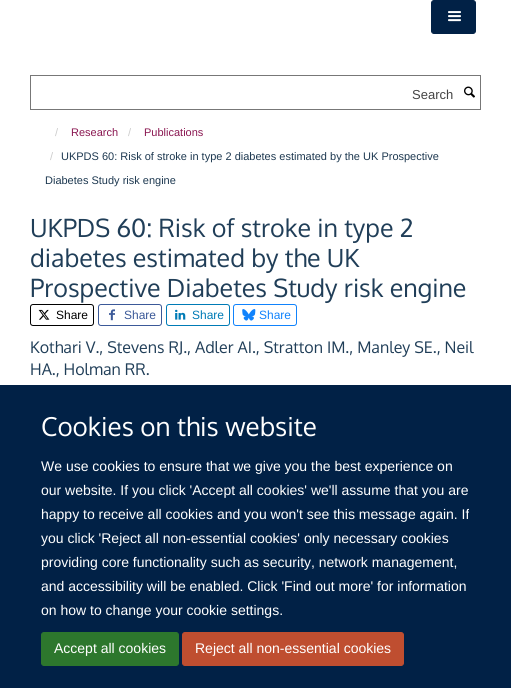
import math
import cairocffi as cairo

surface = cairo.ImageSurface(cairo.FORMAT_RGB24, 511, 688)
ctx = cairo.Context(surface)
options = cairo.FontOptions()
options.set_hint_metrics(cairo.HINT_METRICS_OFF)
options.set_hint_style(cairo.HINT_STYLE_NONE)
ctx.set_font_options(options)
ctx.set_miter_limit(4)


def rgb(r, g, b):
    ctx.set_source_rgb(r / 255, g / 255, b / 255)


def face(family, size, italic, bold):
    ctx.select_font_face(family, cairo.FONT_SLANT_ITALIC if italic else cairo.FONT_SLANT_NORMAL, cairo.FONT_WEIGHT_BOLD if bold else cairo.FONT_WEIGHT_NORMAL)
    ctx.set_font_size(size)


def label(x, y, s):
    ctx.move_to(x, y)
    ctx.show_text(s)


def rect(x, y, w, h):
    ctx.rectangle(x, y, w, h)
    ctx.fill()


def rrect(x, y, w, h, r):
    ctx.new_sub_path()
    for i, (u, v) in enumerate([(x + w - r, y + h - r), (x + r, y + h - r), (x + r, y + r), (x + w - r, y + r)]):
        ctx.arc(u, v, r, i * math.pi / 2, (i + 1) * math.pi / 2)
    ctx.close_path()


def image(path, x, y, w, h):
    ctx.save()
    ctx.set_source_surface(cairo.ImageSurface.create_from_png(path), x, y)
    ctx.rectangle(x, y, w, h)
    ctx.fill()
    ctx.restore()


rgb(255, 255, 255)
ctx.paint()
rgb(1, 33, 70)
rrect(431.5, 0.5, 44, 33, 2.5)
ctx.fill_preserve()
ctx.set_line_width(1)
ctx.stroke()
image('image0.png', 448, 11, 13, 11)
ctx.rectangle(30.5, 75.5, 450, 34)
rgb(119, 119, 119)
ctx.stroke()
face('Liberation Sans', 13, 0, 0)
rgb(68, 68, 68)
label(412, 99, 'Search')
image('image1.png', 464, 86, 11, 12)
face('Liberation Sans', 11, 0, 0)
rgb(204, 204, 204)
label(55, 136, '/')
rgb(138, 23, 81)
label(71, 136, 'Research')
rgb(204, 204, 204)
label(128, 136, '/')
rgb(138, 23, 81)
label(144, 136, 'Publications')
rgb(204, 204, 204)
label(50, 160, '/')
rgb(29, 56, 80)
label(61, 160, 'UKPDS 60: Risk of stroke in type 2 diabetes estimated by the UK Prospective')
label(45, 184, 'Diabetes Study risk engine')
face('Oxygen', 25, 0, 0)
rgb(32, 62, 88)
label(30, 237, 'UKPDS 60: Risk of stroke in type 2')
label(30, 267, 'diabetes estimated by the UK')
label(30, 297, 'Prospective Diabetes Study risk engine')
rrect(30.5, 304.5, 63, 21, 2.5)
rgb(0, 0, 0)
ctx.stroke()
image('image2.png', 38, 309, 12, 11)
face('Liberation Sans', 12, 0, 0)
label(56, 319, 'Share')
rrect(98.5, 304.5, 63, 21, 2.5)
rgb(59, 89, 152)
ctx.stroke()
image('image3.png', 109, 309, 6, 12)
label(124, 319, 'Share')
rrect(166.5, 304.5, 63, 21, 2.5)
rgb(0, 123, 182)
ctx.stroke()
image('image4.png', 175, 309, 11, 11)
label(192, 319, 'Share')
rrect(233.5, 304.5, 63, 21, 2.5)
rgb(17, 131, 252)
ctx.stroke()
image('image5.png', 242, 309, 14, 12)
label(259, 319, 'Share')
face('Oxygen', 16, 0, 0)
rgb(32, 62, 88)
label(30, 353, 'Kothari V., Stevens RJ., Adler AI., Stratton IM., Manley SE., Neil')
label(30, 375, 'HA., Holman RR.')
rgb(1, 33, 70)
rect(0, 385, 511, 303)
face('Oxygen', 26, 0, 0)
rgb(255, 255, 255)
label(41, 436, 'Cookies on this website')
face('Liberation Sans', 14, 0, 0)
label(41, 471, 'We use cookies to ensure that we give you the best experience on')
label(41, 495, 'our website. If you click \'Accept all cookies\' we\'ll assume that you are')
label(41, 519, 'happy to receive all cookies and you won\'t see this message again. If')
label(41, 543, 'you click \'Reject all non-essential cookies\' only necessary cookies')
label(41, 567, 'providing core functionality such as security, network management,')
label(41, 591, 'and accessibility will be enabled. Click \'Find out more\' for information')
label(41, 615, 'on how to change your cookie settings.')
rgb(45, 119, 45)
rrect(41.5, 632.5, 137, 33, 2.5)
ctx.fill_preserve()
ctx.stroke()
rgb(255, 255, 255)
label(54, 653, 'Accept all cookies')
rgb(191, 78, 48)
rrect(182.5, 632.5, 221, 33, 2.5)
ctx.fill_preserve()
ctx.stroke()
rgb(255, 255, 255)
label(195, 653, 'Reject all non-essential cookies')
surface.write_to_png('render.png')
